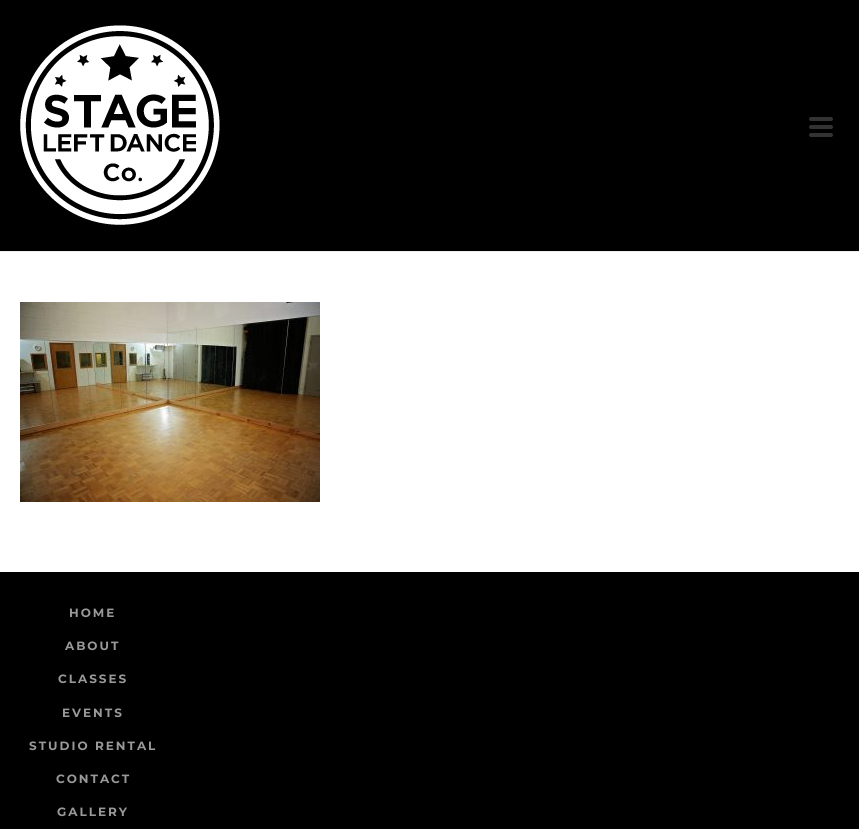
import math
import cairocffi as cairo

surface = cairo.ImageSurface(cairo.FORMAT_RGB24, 859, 829)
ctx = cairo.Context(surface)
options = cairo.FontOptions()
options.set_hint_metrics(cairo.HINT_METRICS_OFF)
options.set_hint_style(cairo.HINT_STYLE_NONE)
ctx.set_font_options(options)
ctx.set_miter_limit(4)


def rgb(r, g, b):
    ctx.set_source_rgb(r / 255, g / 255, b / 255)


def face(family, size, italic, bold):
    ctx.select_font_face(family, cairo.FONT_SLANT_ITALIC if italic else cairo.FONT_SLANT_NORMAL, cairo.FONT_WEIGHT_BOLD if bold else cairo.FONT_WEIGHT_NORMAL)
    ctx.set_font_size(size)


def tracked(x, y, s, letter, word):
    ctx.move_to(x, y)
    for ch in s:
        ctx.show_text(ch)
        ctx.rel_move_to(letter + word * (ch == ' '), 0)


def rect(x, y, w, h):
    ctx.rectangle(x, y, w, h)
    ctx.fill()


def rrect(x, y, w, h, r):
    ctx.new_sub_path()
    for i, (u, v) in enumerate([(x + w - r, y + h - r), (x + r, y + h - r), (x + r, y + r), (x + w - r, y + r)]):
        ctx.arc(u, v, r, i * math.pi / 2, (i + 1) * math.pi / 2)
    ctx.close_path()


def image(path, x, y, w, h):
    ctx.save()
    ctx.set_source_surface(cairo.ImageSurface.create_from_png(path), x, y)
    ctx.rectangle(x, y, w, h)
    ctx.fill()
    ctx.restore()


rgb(255, 255, 255)
ctx.paint()
rgb(237, 237, 237)
rect(0, 251, 859, 1)
rgb(0, 0, 0)
rect(0, 0, 859, 251)
image('image0.png', 20, 25, 200, 200)
rgb(51, 51, 51)
rrect(809, 117, 24, 4, 2)
ctx.fill()
rrect(809, 125, 24, 4, 2)
ctx.fill()
rrect(809, 133, 24, 4, 2)
ctx.fill()
image('image1.png', 20, 302, 300, 200)
rgb(0, 0, 0)
rect(0, 572, 859, 257)
face('Montserrat', 12, 0, 1)
rgb(153, 153, 153)
tracked(69, 617, 'HOME', 2, 0)
tracked(65, 650, 'ABOUT', 2, 0)
tracked(58, 683, 'CLASSES', 2, 0)
tracked(62, 717, 'EVENTS', 2, 0)
tracked(29, 750, 'STUDIO RENTAL', 2, 0)
tracked(56, 783, 'CONTACT', 2, 0)
tracked(57, 816, 'GALLERY', 2, 0)
surface.write_to_png('render.png')
